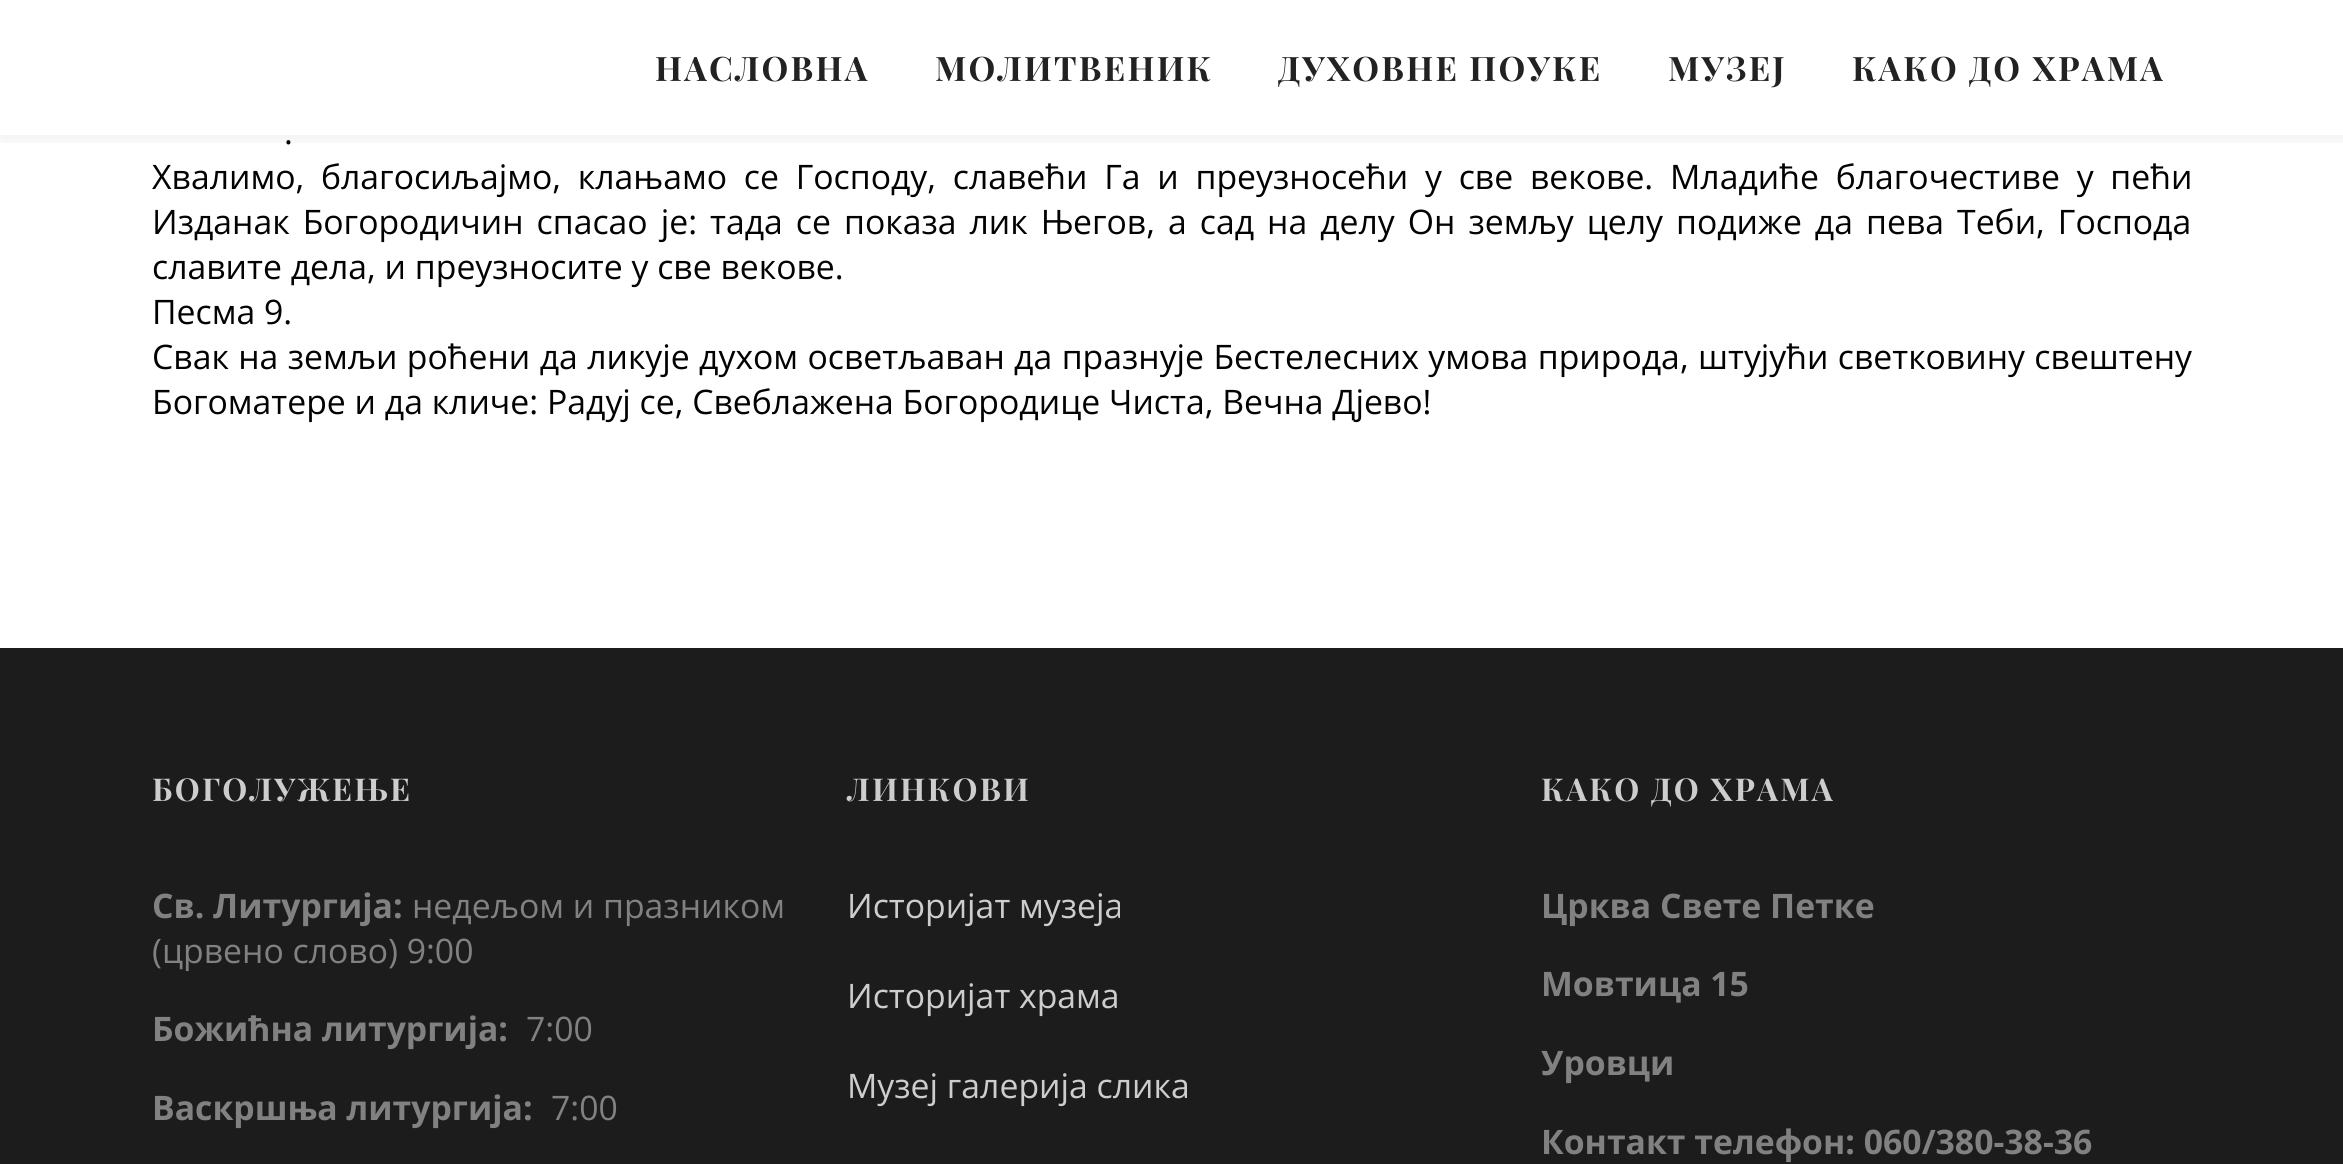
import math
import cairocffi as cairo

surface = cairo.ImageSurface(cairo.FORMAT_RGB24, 2343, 1164)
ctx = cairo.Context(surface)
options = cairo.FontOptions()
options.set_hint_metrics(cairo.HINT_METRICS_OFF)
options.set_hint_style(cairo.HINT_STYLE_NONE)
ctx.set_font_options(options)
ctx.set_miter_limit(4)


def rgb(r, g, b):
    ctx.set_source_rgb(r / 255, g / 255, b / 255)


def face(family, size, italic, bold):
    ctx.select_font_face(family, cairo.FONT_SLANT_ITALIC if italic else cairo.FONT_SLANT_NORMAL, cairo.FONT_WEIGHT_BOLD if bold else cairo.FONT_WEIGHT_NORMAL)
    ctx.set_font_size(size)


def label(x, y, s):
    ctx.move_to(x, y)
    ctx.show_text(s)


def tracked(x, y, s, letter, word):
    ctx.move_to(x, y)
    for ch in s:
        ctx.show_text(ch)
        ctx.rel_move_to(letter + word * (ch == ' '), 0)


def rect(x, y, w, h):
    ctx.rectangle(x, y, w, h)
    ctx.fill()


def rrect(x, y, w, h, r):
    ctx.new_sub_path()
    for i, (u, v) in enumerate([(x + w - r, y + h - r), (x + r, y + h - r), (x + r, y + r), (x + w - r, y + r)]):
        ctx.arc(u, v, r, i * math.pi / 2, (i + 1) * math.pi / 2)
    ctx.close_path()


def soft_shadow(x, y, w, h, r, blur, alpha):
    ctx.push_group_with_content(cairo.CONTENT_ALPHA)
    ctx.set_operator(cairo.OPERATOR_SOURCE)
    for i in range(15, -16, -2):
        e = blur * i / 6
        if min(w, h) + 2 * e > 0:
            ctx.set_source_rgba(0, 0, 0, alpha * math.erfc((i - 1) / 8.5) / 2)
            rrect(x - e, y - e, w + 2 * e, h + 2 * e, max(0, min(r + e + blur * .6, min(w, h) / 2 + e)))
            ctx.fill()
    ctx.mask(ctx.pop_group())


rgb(255, 255, 255)
ctx.paint()
ctx.save()
ctx.rectangle(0, 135, 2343, 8)
ctx.clip()
rgb(0, 0, 0)
soft_shadow(0, 7, 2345, 135, 0, 5.5, 0.05)
ctx.restore()
face('Playfair Display SC', 33.75, 0, 1)
rgb(34, 34, 34)
tracked(655, 81, 'НАСЛОВНА', 2.25, 0)
tracked(935, 81, 'МОЛИТВЕНИК', 2.25, 0)
tracked(1278, 81, 'ДУХОВНЕ ПОУКЕ', 2.25, 0)
tracked(1668, 81, 'МУЗЕЈ', 2.25, 0)
tracked(1852, 81, 'КАКО ДО ХРАМА', 2.25, 0)
face('Open Sans', 33.75, 0, 0)
rgb(2, 2, 2)
label(284, 144, '.')
tracked(152, 189, 'Хвалимо, благосиљајмо, клањамо се Господу, славећи Га и преузносећи у све векове. Младиће благочестиве у пећи', 0, 8)
tracked(152, 234, 'Изданак Богородичин спасaо је: тада се показа лик Његов, а сад на делу Он земљу целу подиже да пева Теби, Господа', 0, 4.25)
label(152, 279, 'славите дела, и преузносите у све векове.')
label(152, 324, 'Песма 9.')
tracked(152, 369, 'Свак на земљи роћени да ликује духом осветљаван да празнује Бестелесних умова природа, штујући светковину свештену', 0, 0.6)
label(152, 414, 'Богоматере и да кличе: Радуј се, Свеблажена Богородице Чиста, Вечна Дјево!')
rgb(28, 28, 28)
rect(0, 648, 2343, 516)
face('Playfair Display SC', 31.5, 0, 1)
rgb(205, 205, 205)
tracked(152, 801, 'БОГОЛУЖЕЊЕ', 2.25, 0)
face('Open Sans', 33.75, 0, 1)
rgb(129, 129, 129)
label(152, 918, 'Св. Литургија:')
face('Open Sans', 33.75, 0, 0)
label(412, 918, 'недељом и празником')
label(152, 963, '(црвено слово) 9:00')
face('Open Sans', 33.75, 0, 1)
label(152, 1041, 'Божићна литургија:')
face('Open Sans', 33.75, 0, 0)
label(526, 1041, '7:00')
face('Open Sans', 33.75, 0, 1)
label(152, 1120, 'Васкршња литургија:')
face('Open Sans', 33.75, 0, 0)
label(551, 1120, '7:00')
face('Playfair Display SC', 31.5, 0, 1)
rgb(205, 205, 205)
tracked(847, 801, 'ЛИНКОВИ', 2.25, 0)
face('Open Sans', 33.75, 0, 0)
label(847, 918, 'Историјат музеја')
label(847, 1008, 'Историјат храма')
label(847, 1098, 'Музеј галерија слика')
face('Playfair Display SC', 31.5, 0, 1)
tracked(1541, 801, 'КАКО ДО ХРАМА', 2.25, 0)
face('Open Sans', 33.75, 0, 1)
rgb(129, 129, 129)
label(1541, 918, 'Црква Свете Петке')
label(1541, 996, 'Мовтица 15')
label(1541, 1075, 'Уровци')
label(1541, 1154, 'Контакт телефон: 060/380-38-36')
surface.write_to_png('render.png')
